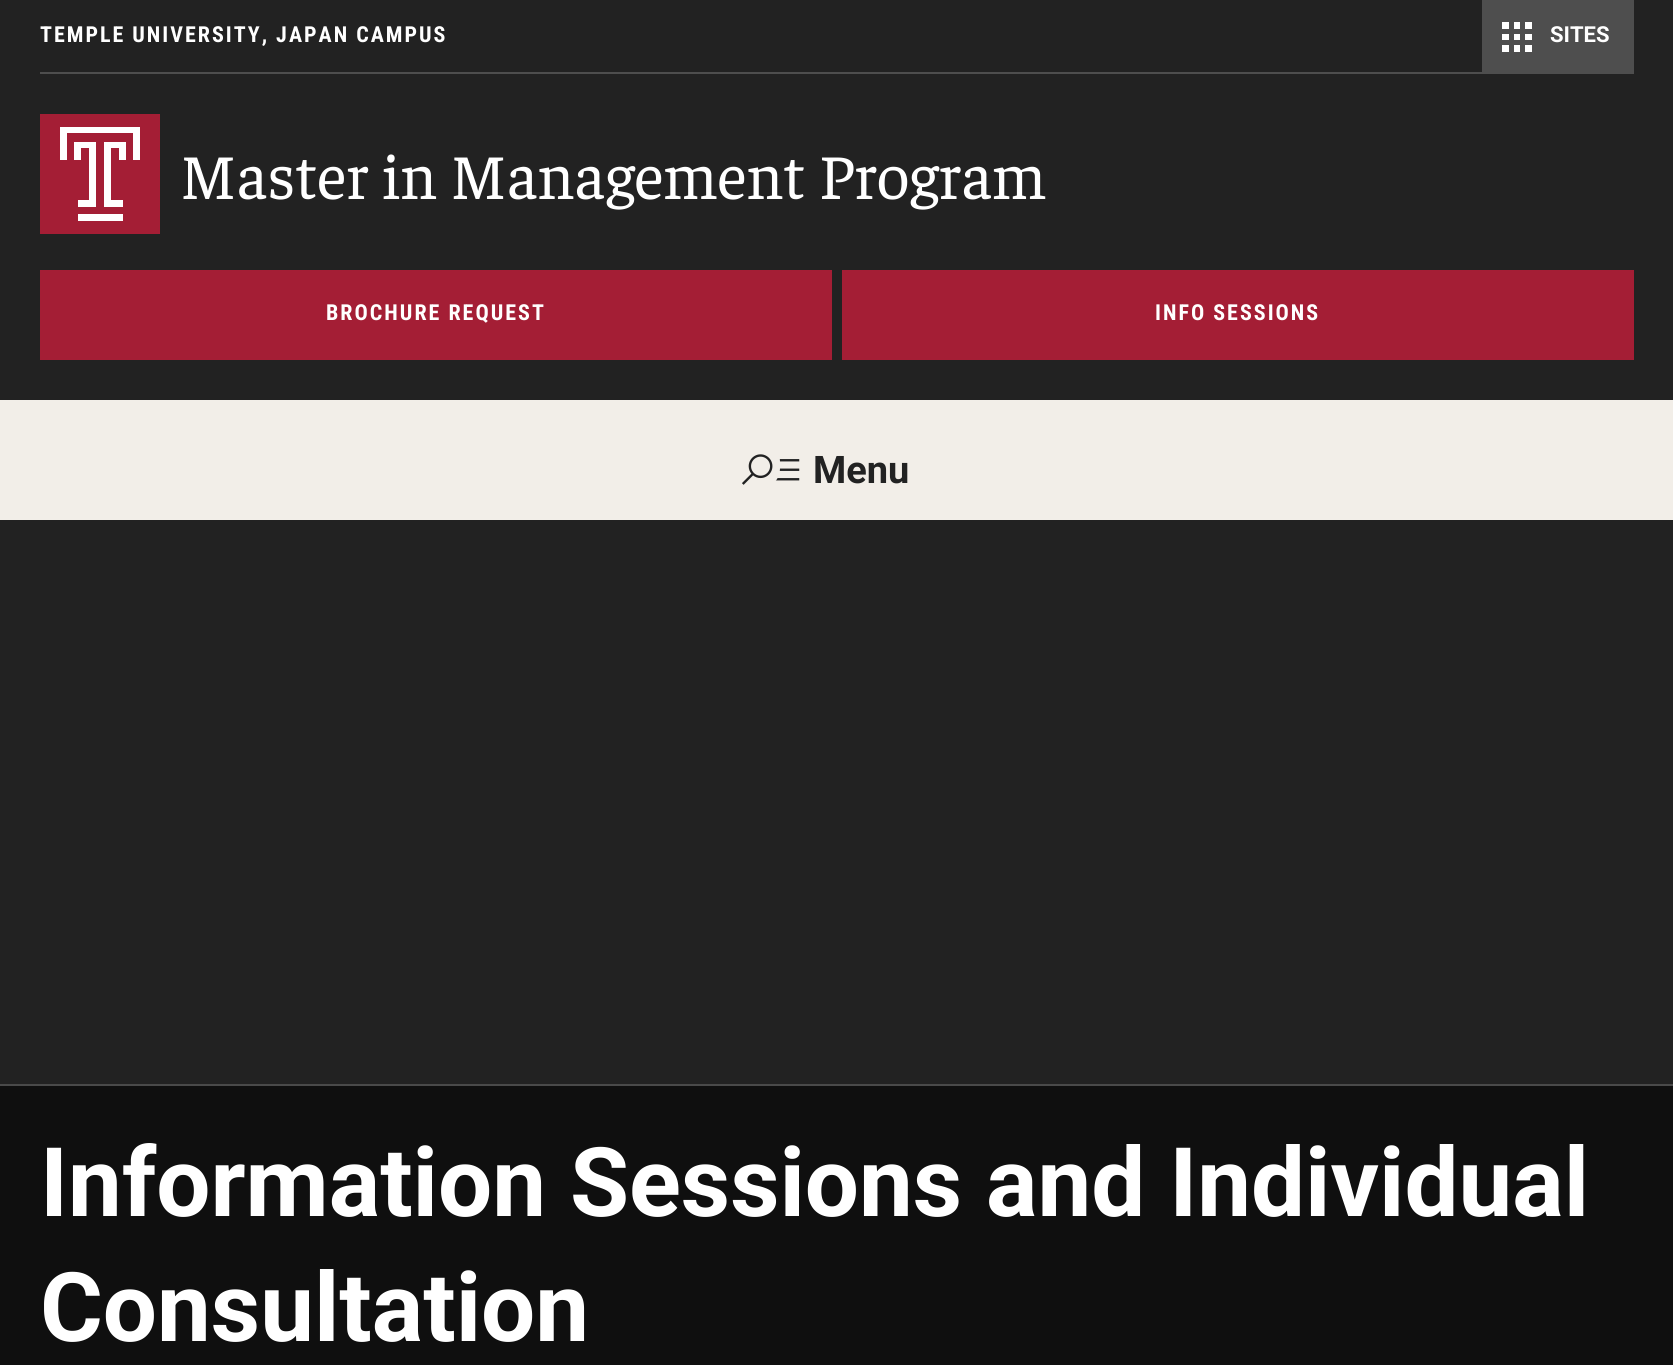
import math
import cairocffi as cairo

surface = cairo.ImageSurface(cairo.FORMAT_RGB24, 1673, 1365)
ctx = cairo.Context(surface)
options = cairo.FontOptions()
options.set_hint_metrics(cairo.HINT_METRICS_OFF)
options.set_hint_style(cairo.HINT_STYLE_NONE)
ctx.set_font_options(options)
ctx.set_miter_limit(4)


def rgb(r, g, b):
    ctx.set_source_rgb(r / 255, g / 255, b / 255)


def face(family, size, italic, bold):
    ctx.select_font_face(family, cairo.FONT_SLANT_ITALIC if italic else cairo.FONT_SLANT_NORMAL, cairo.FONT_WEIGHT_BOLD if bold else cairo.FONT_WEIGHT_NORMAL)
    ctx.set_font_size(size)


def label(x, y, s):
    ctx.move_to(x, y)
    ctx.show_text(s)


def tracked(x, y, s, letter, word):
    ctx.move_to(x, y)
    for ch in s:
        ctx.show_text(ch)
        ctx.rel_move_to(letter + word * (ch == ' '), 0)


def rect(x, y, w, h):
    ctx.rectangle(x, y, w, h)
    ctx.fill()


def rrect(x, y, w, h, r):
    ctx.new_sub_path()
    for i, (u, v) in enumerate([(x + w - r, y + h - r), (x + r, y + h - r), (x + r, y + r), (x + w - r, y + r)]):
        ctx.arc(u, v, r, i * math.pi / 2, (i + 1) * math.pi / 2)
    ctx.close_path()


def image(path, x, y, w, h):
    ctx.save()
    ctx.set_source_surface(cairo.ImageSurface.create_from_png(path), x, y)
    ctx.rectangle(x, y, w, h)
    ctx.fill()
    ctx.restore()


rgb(34, 34, 34)
ctx.paint()
rgb(78, 78, 78)
rect(40, 72, 1442, 2)
face('Roboto Condensed', 22, 0, 1)
rgb(255, 255, 255)
tracked(40, 42, 'TEMPLE UNIVERSITY, JAPAN CAMPUS', 2, 0)
rgb(78, 78, 78)
rect(1482, 0, 152, 74)
image('image0.png', 1502, 22, 30, 30)
face('Roboto', 22, 0, 1)
rgb(255, 255, 255)
label(1550, 42, 'SITES')
rgb(164, 30, 53)
rect(40, 114, 120, 120)
rgb(255, 255, 255)
ctx.new_path()
ctx.move_to(60, 127)
ctx.line_to(60, 160)
ctx.line_to(67, 160)
ctx.line_to(67, 133)
ctx.line_to(133, 133)
ctx.line_to(133, 160)
ctx.line_to(140, 160)
ctx.line_to(140, 127)
ctx.close_path()
ctx.fill()
ctx.new_path()
ctx.move_to(78, 200)
ctx.line_to(78, 207)
ctx.line_to(96, 207)
ctx.line_to(96, 142)
ctx.line_to(74, 142)
ctx.line_to(74, 160)
ctx.line_to(81, 160)
ctx.line_to(81, 148)
ctx.line_to(89, 148)
ctx.line_to(89, 200)
ctx.close_path()
ctx.fill()
ctx.new_path()
ctx.move_to(104, 142)
ctx.line_to(104, 207)
ctx.line_to(123, 207)
ctx.line_to(123, 200)
ctx.line_to(111, 200)
ctx.line_to(111, 148)
ctx.line_to(119, 148)
ctx.line_to(119, 160)
ctx.line_to(126, 160)
ctx.line_to(126, 142)
ctx.close_path()
ctx.fill()
rect(78, 214, 45, 7)
face('Faustina', 64, 0, 0)
label(180, 199, 'Master in Management Program')
rgb(164, 30, 53)
rect(40, 270, 792, 90)
face('Roboto Condensed', 22, 0, 1)
rgb(255, 255, 255)
tracked(326, 320, 'BROCHURE REQUEST', 2, 0)
rgb(164, 30, 53)
rect(842, 270, 792, 90)
rgb(255, 255, 255)
tracked(1155, 320, 'INFO SESSIONS', 2, 0)
rgb(242, 238, 232)
rect(0, 400, 1673, 120)
image('image2.png', 775, 459, 25, 22)
rrect(736, 440, 44, 50, 22)
ctx.fill()
image('image1.png', 742, 454, 31, 31)
face('Roboto', 38, 0, 1)
rgb(34, 34, 34)
label(813, 483, 'Menu')
rgb(15, 15, 15)
rect(0, 1086, 1673, 279)
rgb(74, 74, 74)
rect(0, 1084, 1673, 2)
face('Roboto', 96, 0, 1)
rgb(255, 255, 255)
label(40, 1216, 'Information Sessions and Individual')
label(40, 1341, 'Consultation')
surface.write_to_png('render.png')
